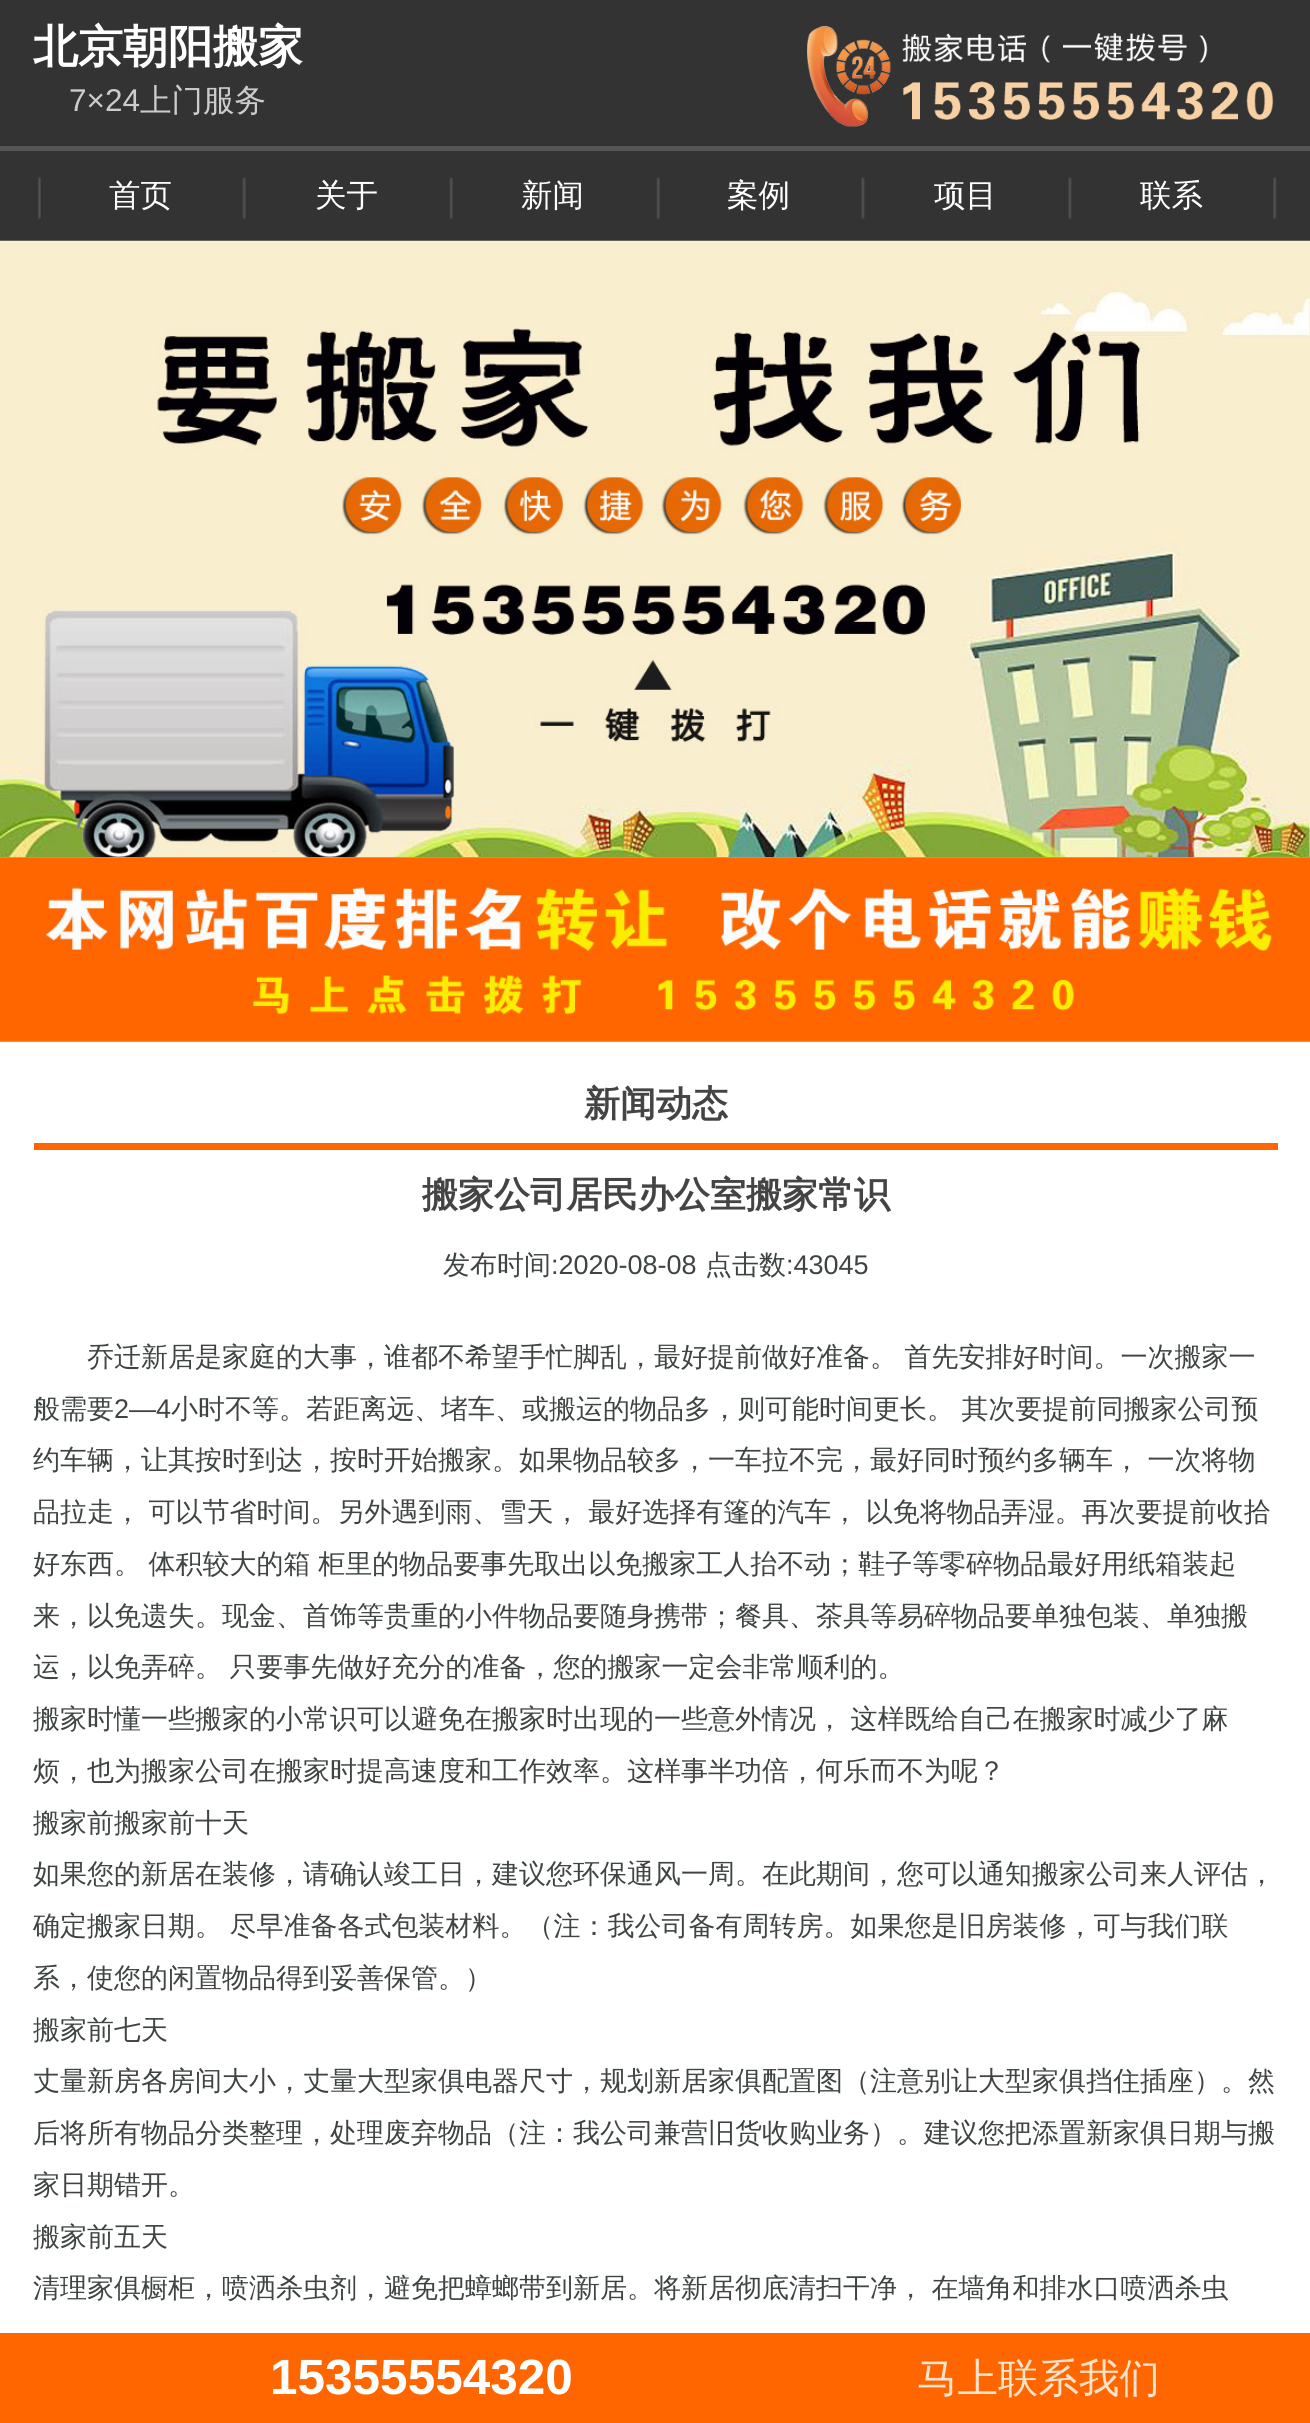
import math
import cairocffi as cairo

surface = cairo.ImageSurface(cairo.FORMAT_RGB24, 1310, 2423)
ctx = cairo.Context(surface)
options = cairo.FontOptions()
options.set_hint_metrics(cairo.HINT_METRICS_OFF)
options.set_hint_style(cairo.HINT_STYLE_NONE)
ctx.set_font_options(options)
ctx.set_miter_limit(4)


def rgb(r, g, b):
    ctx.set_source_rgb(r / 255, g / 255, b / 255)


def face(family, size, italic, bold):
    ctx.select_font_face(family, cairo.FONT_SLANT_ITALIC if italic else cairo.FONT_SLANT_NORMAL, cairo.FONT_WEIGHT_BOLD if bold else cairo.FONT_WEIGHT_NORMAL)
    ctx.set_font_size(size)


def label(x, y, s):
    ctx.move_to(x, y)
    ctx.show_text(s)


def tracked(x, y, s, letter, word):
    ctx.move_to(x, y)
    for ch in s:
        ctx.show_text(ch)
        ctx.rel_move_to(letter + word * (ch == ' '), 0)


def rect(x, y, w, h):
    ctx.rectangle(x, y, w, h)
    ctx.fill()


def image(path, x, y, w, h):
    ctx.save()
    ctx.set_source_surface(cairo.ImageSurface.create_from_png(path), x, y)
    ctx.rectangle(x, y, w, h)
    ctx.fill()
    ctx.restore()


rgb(255, 255, 255)
ctx.paint()
rgb(51, 51, 51)
rect(0, 0, 1310, 146)
face('WenQuanYi Zen Hei', 45, 0, 1)
rgb(255, 255, 255)
label(33, 62, '北京朝阳搬家')
face('Liberation Sans', 31.5, 0, 0)
rgb(204, 204, 204)
label(69, 111, '7×24')
face('WenQuanYi Zen Hei Medium', 31.5, 0, 0)
label(140, 111, '上门服务')
image('image0.png', 807, 26, 467, 101)
rgb(85, 85, 85)
rect(0, 146, 1310, 5)
rgb(51, 51, 51)
rect(0, 151, 1310, 90)
image('image1.png', 38, 177, 3, 42)
rgb(255, 255, 255)
label(109, 206, '首页')
image('image2.png', 242, 177, 4, 42)
label(315, 206, '关于')
image('image2.png', 449, 177, 4, 42)
label(521, 206, '新闻')
image('image2.png', 656, 177, 4, 42)
label(727, 206, '案例')
image('image3.png', 861, 177, 4, 42)
label(934, 206, '项目')
image('image3.png', 1068, 177, 4, 42)
label(1140, 206, '联系')
image('image4.png', 1273, 177, 4, 42)
image('image5.png', 0, 240, 1310, 618)
image('image6.png', 0, 857, 1310, 185)
face('WenQuanYi Zen Hei', 36, 0, 1)
rgb(68, 68, 68)
label(584, 1116, '新闻动态')
rgb(255, 102, 0)
rect(34, 1143, 1244, 7)
rgb(68, 68, 68)
label(422, 1207, '搬家公司居民办公室搬家常识')
face('WenQuanYi Zen Hei Medium', 27, 0, 0)
rgb(62, 68, 66)
label(443, 1274, '发布时间')
face('Liberation Sans', 27, 0, 0)
label(551, 1274, ':2020-08-08')
face('WenQuanYi Zen Hei Medium', 27, 0, 0)
label(705, 1274, '点击数')
face('Liberation Sans', 27, 0, 0)
label(786, 1274, ':43045')
face('WenQuanYi Zen Hei Medium', 27, 0, 0)
tracked(87, 1366, '乔迁新居是家庭的大事，谁都不希望手忙脚乱，最好提前做好准备。 首先安排好时间。一次搬家一', 0, -0.5)
label(33, 1418, '般需要')
face('Liberation Sans', 27, 0, 0)
label(114, 1418, '2—4')
face('WenQuanYi Zen Hei Medium', 27, 0, 0)
tracked(171, 1418, '小时不等。若距离远、堵车、或搬运的物品多，则可能时间更长。 其次要提前同搬家公司预', 0, -0.5)
tracked(33, 1469, '约车辆，让其按时到达，按时开始搬家。如果物品较多，一车拉不完，最好同时预约多辆车， 一次将物', 0, -0.5)
tracked(33, 1521, '品拉走， 可以节省时间。另外遇到雨、雪天， 最好选择有篷的汽车， 以免将物品弄湿。再次要提前收拾', 0, -0.5)
tracked(33, 1573, '好东西。 体积较大的箱 柜里的物品要事先取出以免搬家工人抬不动；鞋子等零碎物品最好用纸箱装起', 0, -0.5)
label(33, 1625, '来，以免遗失。现金、首饰等贵重的小件物品要随身携带；餐具、茶具等易碎物品要单独包装、单独搬')
tracked(33, 1676, '运，以免弄碎。 只要事先做好充分的准备，您的搬家一定会非常顺利的。', 0, -0.5)
tracked(33, 1728, '搬家时懂一些搬家的小常识可以避免在搬家时出现的一些意外情况， 这样既给自己在搬家时减少了麻', 0, -0.5)
label(33, 1780, '烦，也为搬家公司在搬家时提高速度和工作效率。这样事半功倍，何乐而不为呢？')
label(33, 1832, '搬家前搬家前十天')
label(33, 1883, '如果您的新居在装修，请确认竣工日，建议您环保通风一周。在此期间，您可以通知搬家公司来人评估，')
tracked(33, 1935, '确定搬家日期。 尽早准备各式包装材料。（注：我公司备有周转房。如果您是旧房装修，可与我们联', 0, -0.5)
label(33, 1987, '系，使您的闲置物品得到妥善保管。）')
label(33, 2039, '搬家前七天')
label(33, 2090, '丈量新房各房间大小，丈量大型家俱电器尺寸，规划新居家俱配置图（注意别让大型家俱挡住插座）。然')
label(33, 2142, '后将所有物品分类整理，处理废弃物品（注：我公司兼营旧货收购业务）。建议您把添置新家俱日期与搬')
label(33, 2194, '家日期错开。')
label(33, 2246, '搬家前五天')
tracked(33, 2297, '清理家俱橱柜，喷洒杀虫剂，避免把蟑螂带到新居。将新居彻底清扫干净， 在墙角和排水口喷洒杀虫', 0, -0.5)
rgb(255, 102, 0)
rect(0, 2333, 1310, 90)
face('Liberation Sans', 49.5, 0, 1)
rgb(255, 255, 255)
label(270, 2394, '15355554320')
face('WenQuanYi Zen Hei Medium', 40.5, 0, 0)
rgb(249, 228, 204)
label(917, 2392, '马上联系我们')
surface.write_to_png('render.png')
